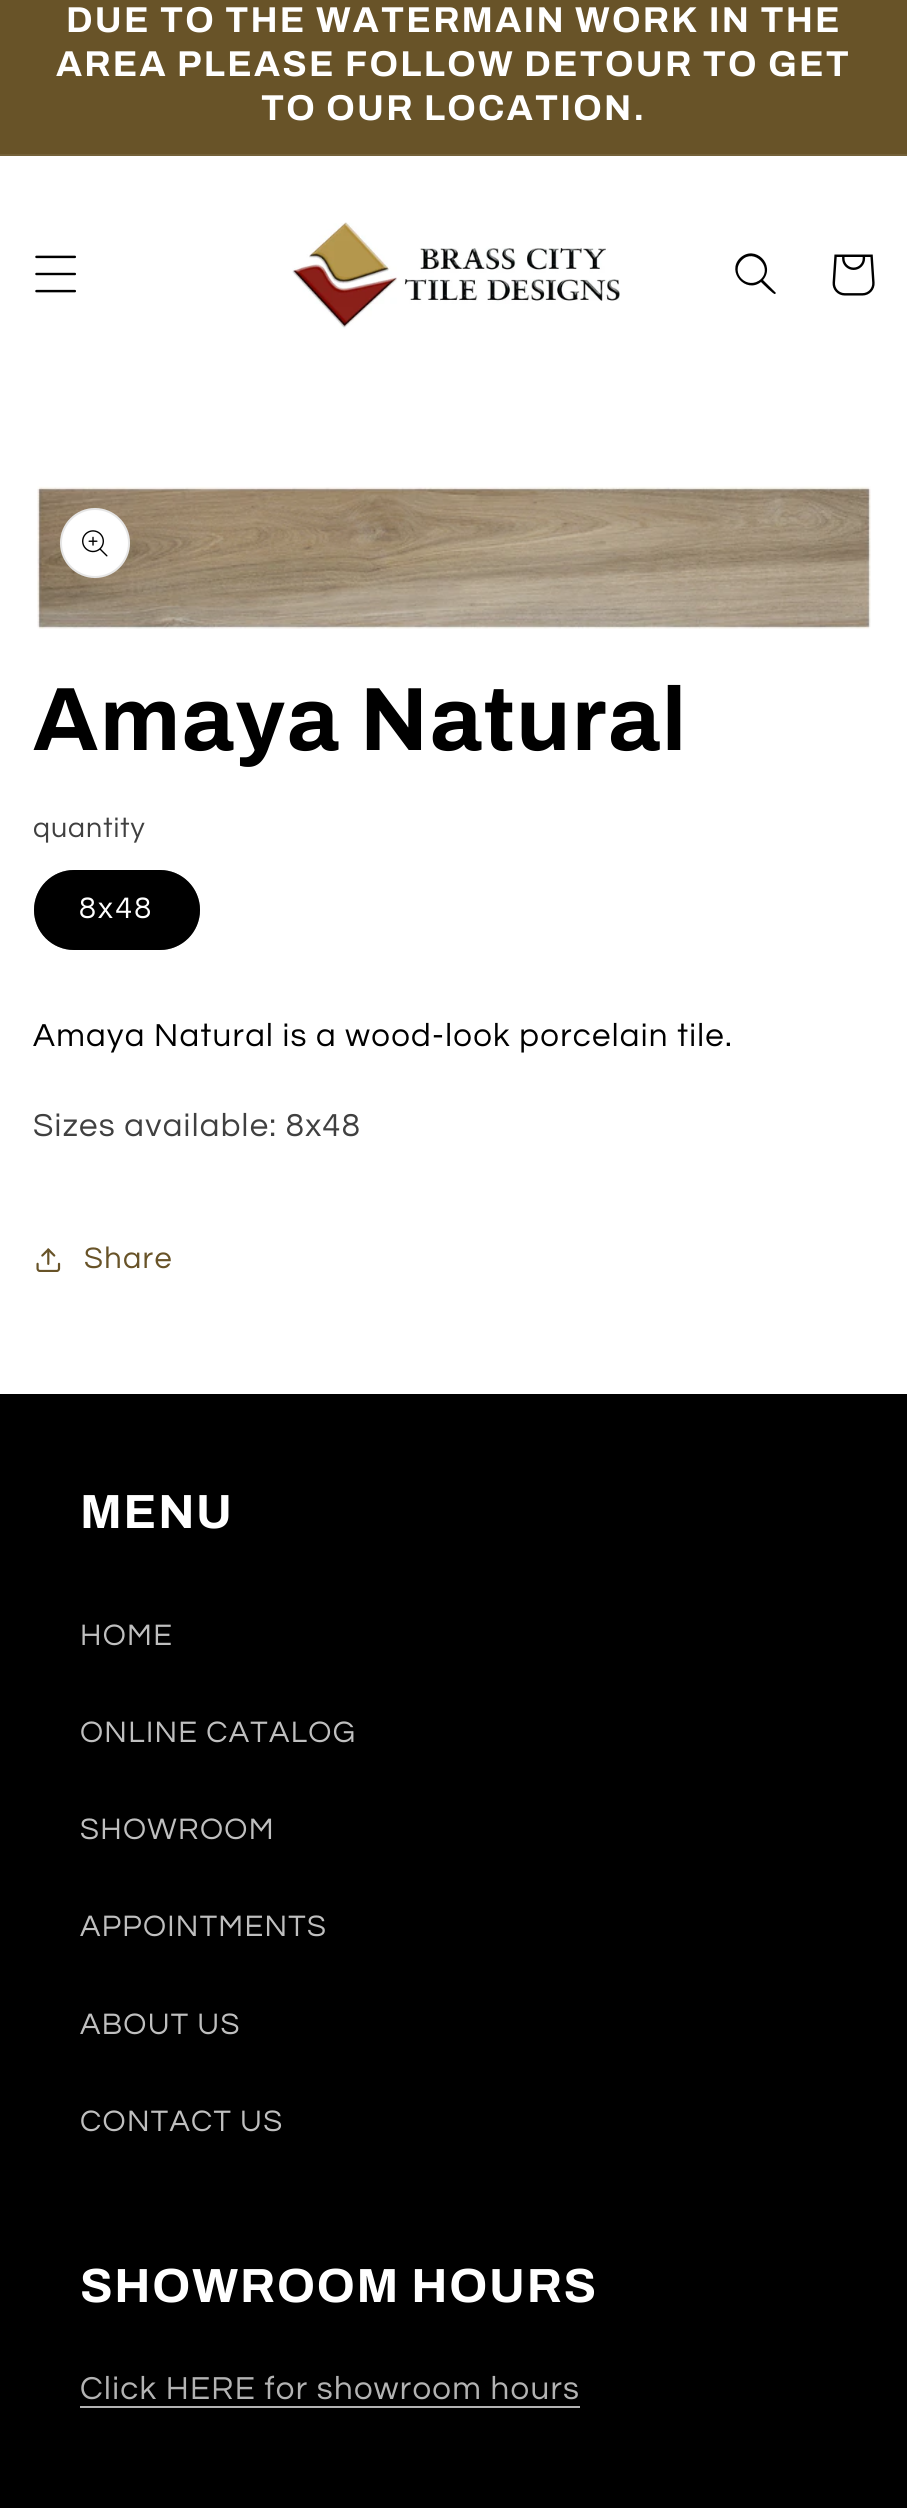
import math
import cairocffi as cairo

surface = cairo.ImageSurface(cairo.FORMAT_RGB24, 907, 2508)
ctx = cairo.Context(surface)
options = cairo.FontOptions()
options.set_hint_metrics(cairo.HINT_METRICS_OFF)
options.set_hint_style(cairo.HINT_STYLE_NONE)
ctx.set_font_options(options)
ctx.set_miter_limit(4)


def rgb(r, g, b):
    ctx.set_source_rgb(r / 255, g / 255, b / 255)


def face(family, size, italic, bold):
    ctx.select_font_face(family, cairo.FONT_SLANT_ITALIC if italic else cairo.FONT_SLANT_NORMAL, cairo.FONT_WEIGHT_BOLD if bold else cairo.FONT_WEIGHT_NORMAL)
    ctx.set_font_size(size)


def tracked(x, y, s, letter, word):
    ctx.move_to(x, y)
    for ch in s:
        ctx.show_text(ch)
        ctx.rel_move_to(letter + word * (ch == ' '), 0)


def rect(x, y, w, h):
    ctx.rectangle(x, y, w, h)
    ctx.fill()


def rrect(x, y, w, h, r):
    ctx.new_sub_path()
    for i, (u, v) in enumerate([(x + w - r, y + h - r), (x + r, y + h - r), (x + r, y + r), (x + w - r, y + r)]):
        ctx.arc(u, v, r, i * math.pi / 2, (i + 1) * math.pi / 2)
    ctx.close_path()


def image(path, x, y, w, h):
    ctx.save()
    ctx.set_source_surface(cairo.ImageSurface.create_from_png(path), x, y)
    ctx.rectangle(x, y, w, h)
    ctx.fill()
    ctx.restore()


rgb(255, 255, 255)
ctx.paint()
rgb(104, 83, 40)
rect(0, 0, 907, 154)
rgb(116, 97, 57)
rect(0, 154, 907, 2)
face('Archivo', 36, 0, 1)
rgb(255, 255, 255)
tracked(66, 32, 'DUE TO THE WATERMAIN WORK IN THE', 2.2, 0)
tracked(56, 76, 'AREA PLEASE FOLLOW DETOUR TO GET', 2.2, 0)
tracked(261, 120, 'TO OUR LOCATION.', 2.2, 0)
image('image0.png', 35, 255, 41, 38)
image('image1.png', 292, 222, 328, 107)
rgb(0, 0, 0)
ctx.set_fill_rule(cairo.FILL_RULE_EVEN_ODD)
ctx.new_path()
ctx.move_to(761, 279)
ctx.curve_to(748, 291, 729, 273, 742, 260)
ctx.curve_to(754, 248, 773, 267, 761, 279)
ctx.close_path()
ctx.move_to(761, 282)
ctx.curve_to(746, 294, 726, 272, 740, 258)
ctx.curve_to(755, 244, 776, 265, 763, 280)
ctx.line_to(776, 293)
ctx.line_to(775, 294)
ctx.curve_to(774, 295, 763, 284, 761, 282)
ctx.close_path()
ctx.fill()
image('image2.png', 832, 254, 43, 42)
image('image3.png', 37, 486, 834, 143)
rgb(255, 255, 255)
ctx.arc(95, 543, 35, 0, 2 * math.pi)
ctx.fill()
ctx.arc(95, 543, 34, 0, 2 * math.pi)
ctx.set_source_rgba(0, 0, 0, 0.1)
ctx.stroke()
image('image4.png', 82, 530, 26, 27)
face('Archivo', 90, 0, 1)
rgb(0, 0, 0)
tracked(33, 750, 'Amaya Natural', 1.75, 0)
face('Questrial', 28.5, 0, 0)
rgb(64, 64, 64)
tracked(33, 837, 'quantity', 1, 0)
rgb(0, 0, 0)
rrect(34, 870, 166, 80, 40)
ctx.fill()
rrect(35, 871, 164, 78, 39)
ctx.set_source_rgba(0, 0, 0, 0.55)
ctx.stroke()
face('Questrial', 30.75, 0, 0)
rgb(255, 255, 255)
tracked(79, 918, '8x48', 2.2, 0)
face('Questrial', 33, 0, 0)
rgb(0, 0, 0)
tracked(33, 1046, 'Amaya Natural is a wood-look porcelain tile.', 1.3, 0)
rgb(64, 64, 64)
tracked(33, 1136, 'Sizes available: 8x48', 1.3, 0)
image('image5.png', 36, 1248, 25, 24)
face('Questrial', 30.75, 0, 0)
rgb(104, 83, 40)
tracked(84, 1268, 'Share', 1.3, 0)
rgb(0, 0, 0)
rect(0, 1394, 907, 1114)
face('Archivo', 48, 0, 1)
rgb(255, 255, 255)
tracked(80, 1528, 'MENU', 1.75, 0)
face('Questrial', 30.75, 0, 0)
rgb(191, 191, 191)
tracked(80, 1645, 'HOME', 1.3, 0)
tracked(80, 1742, 'ONLINE CATALOG', 1.3, 0)
tracked(80, 1839, 'SHOWROOM', 1.3, 0)
tracked(80, 1936, 'APPOINTMENTS', 1.3, 0)
tracked(80, 2034, 'ABOUT US', 1.3, 0)
tracked(80, 2131, 'CONTACT US', 1.3, 0)
face('Archivo', 48, 0, 1)
rgb(255, 255, 255)
tracked(80, 2302, 'SHOWROOM HOURS', 1.75, 0)
face('Questrial', 33, 0, 0)
rgb(179, 179, 179)
tracked(80, 2399, 'Click HERE for showroom hours', 1.3, 0)
rect(80, 2406, 500, 2)
surface.write_to_png('render.png')
